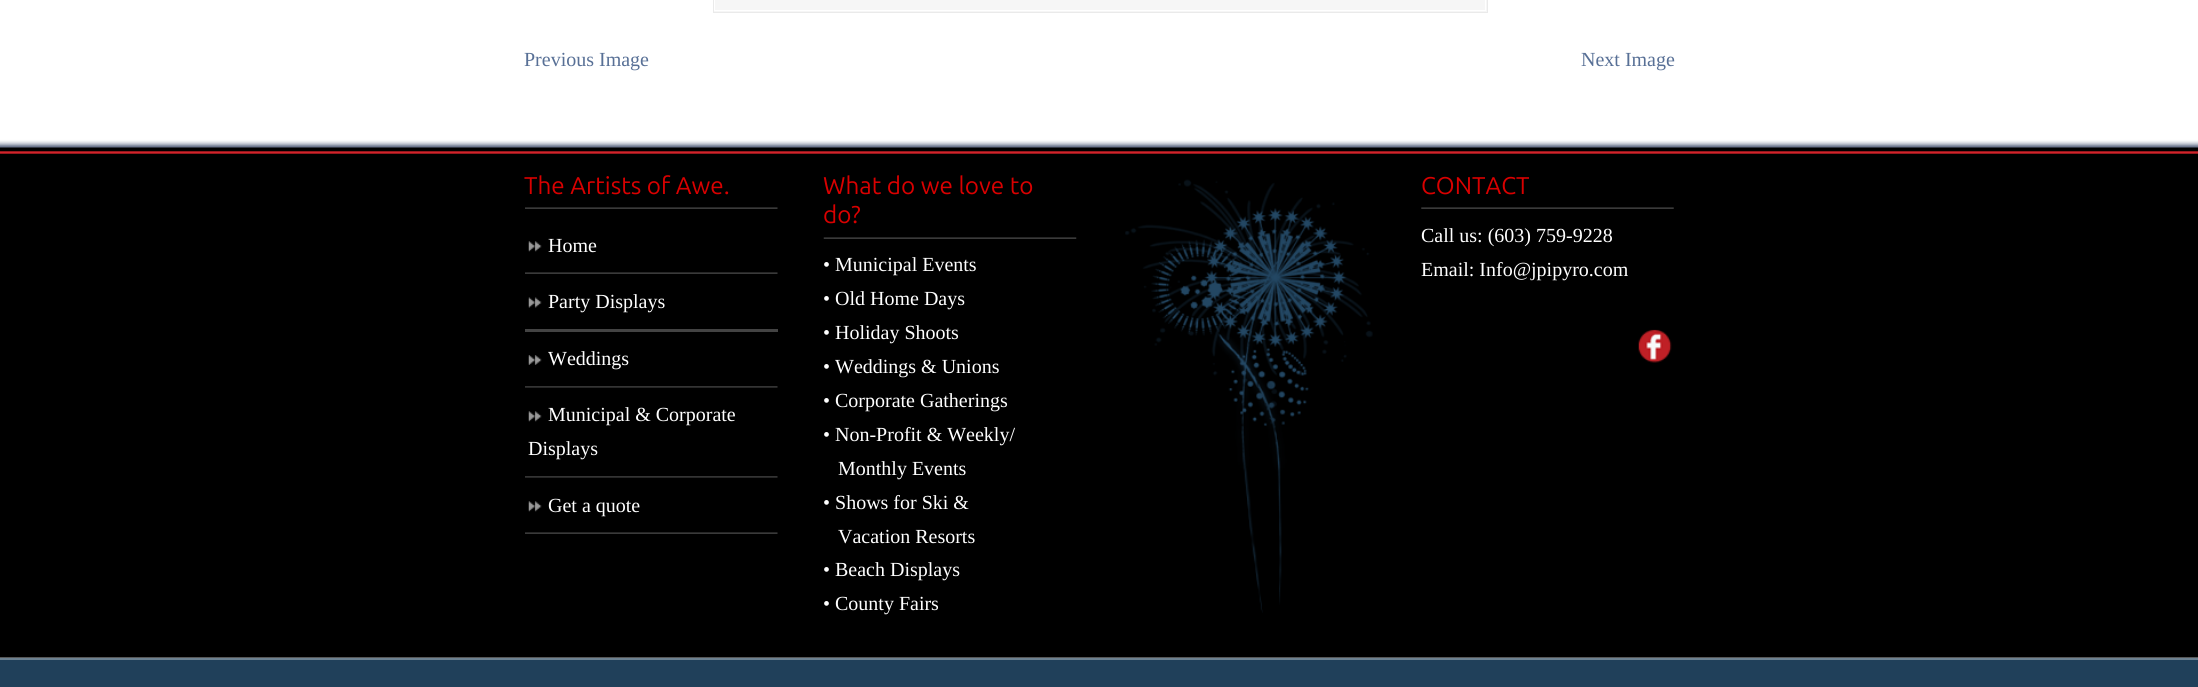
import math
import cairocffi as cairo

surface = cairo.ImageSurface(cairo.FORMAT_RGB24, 2198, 687)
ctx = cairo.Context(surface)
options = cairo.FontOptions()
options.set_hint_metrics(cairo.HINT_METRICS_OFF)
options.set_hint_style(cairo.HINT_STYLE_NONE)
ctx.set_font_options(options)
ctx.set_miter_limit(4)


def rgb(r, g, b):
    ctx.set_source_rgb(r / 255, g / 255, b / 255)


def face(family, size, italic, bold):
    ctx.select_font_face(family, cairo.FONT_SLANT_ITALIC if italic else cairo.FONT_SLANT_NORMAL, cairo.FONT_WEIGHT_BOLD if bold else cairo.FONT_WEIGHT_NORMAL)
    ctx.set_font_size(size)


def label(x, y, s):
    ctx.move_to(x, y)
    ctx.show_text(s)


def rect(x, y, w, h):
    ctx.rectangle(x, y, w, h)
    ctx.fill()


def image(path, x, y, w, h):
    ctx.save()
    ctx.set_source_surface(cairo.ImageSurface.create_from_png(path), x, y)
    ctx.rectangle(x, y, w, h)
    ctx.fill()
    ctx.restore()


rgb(255, 255, 255)
ctx.paint()
rgb(246, 246, 246)
ctx.rectangle(713.5, -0.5, 774, 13)
ctx.fill_preserve()
rgb(234, 234, 234)
ctx.set_line_width(1)
ctx.stroke()
ctx.rectangle(714.5, -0.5, 771, 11)
rgb(255, 255, 255)
ctx.stroke()
face('Liberation Serif', 20, 0, 0)
rgb(88, 112, 150)
label(524, 66, 'Previous Image')
label(1581, 66, 'Next Image')
rgb(0, 0, 0)
rect(0, 154, 2198, 503)
rgb(88, 88, 88)
rect(0, 657, 2198, 1)
image('image0.png', 0, 135, 2198, 19)
image('image1.png', 525, 207, 253, 2)
face('Ubuntu', 24.25, 0, 0)
rgb(217, 0, 0)
label(524, 194, 'The Artists of Awe.')
image('image1.png', 525, 272, 253, 2)
image('image2.png', 528, 241, 14, 11)
face('Liberation Serif', 20, 0, 0)
rgb(255, 255, 255)
label(548, 252, 'Home')
rgb(67, 67, 67)
rect(525, 329, 253, 3)
image('image3.png', 528, 297, 14, 11)
rgb(255, 255, 255)
label(548, 308, 'Party Displays')
image('image4.png', 525, 386, 253, 2)
image('image5.png', 528, 355, 14, 10)
label(548, 365, 'Weddings')
image('image4.png', 525, 476, 253, 2)
image('image2.png', 528, 411, 14, 11)
label(548, 421, 'Municipal & Corporate')
label(528, 455, 'Displays')
image('image1.png', 525, 532, 253, 2)
image('image2.png', 528, 501, 14, 11)
label(548, 512, 'Get a quote')
image('image6.png', 823, 237, 254, 2)
face('Ubuntu', 24.25, 0, 0)
rgb(217, 0, 0)
label(823, 194, 'What do we love to')
label(823, 223, 'do?')
face('Liberation Serif', 20, 0, 0)
rgb(255, 255, 255)
label(823, 271, '• Municipal Events')
label(823, 305, '• Old Home Days')
label(823, 339, '• Holiday Shoots')
label(823, 373, '• Weddings & Unions')
label(823, 407, '• Corporate Gatherings')
label(823, 441, '• Non-Profit & Weekly/')
label(838, 475, 'Monthly Events')
label(823, 509, '• Shows for Ski &')
label(838, 543, 'Vacation Resorts')
label(823, 576, '• Beach Displays')
label(823, 610, '• County Fairs')
image('image7.png', 1125, 179, 248, 434)
image('image8.png', 1421, 207, 253, 2)
face('Ubuntu', 24.25, 0, 0)
rgb(217, 0, 0)
label(1421, 194, 'CONTACT')
face('Liberation Serif', 20, 0, 0)
rgb(255, 255, 255)
label(1421, 242, 'Call us: (603) 759-9228')
label(1421, 276, 'Email: Info@jpipyro.com')
image('image9.png', 1638, 329, 34, 34)
rgb(32, 64, 90)
rect(0, 660, 2198, 27)
rgb(108, 129, 145)
rect(0, 658, 2198, 2)
surface.write_to_png('render.png')
